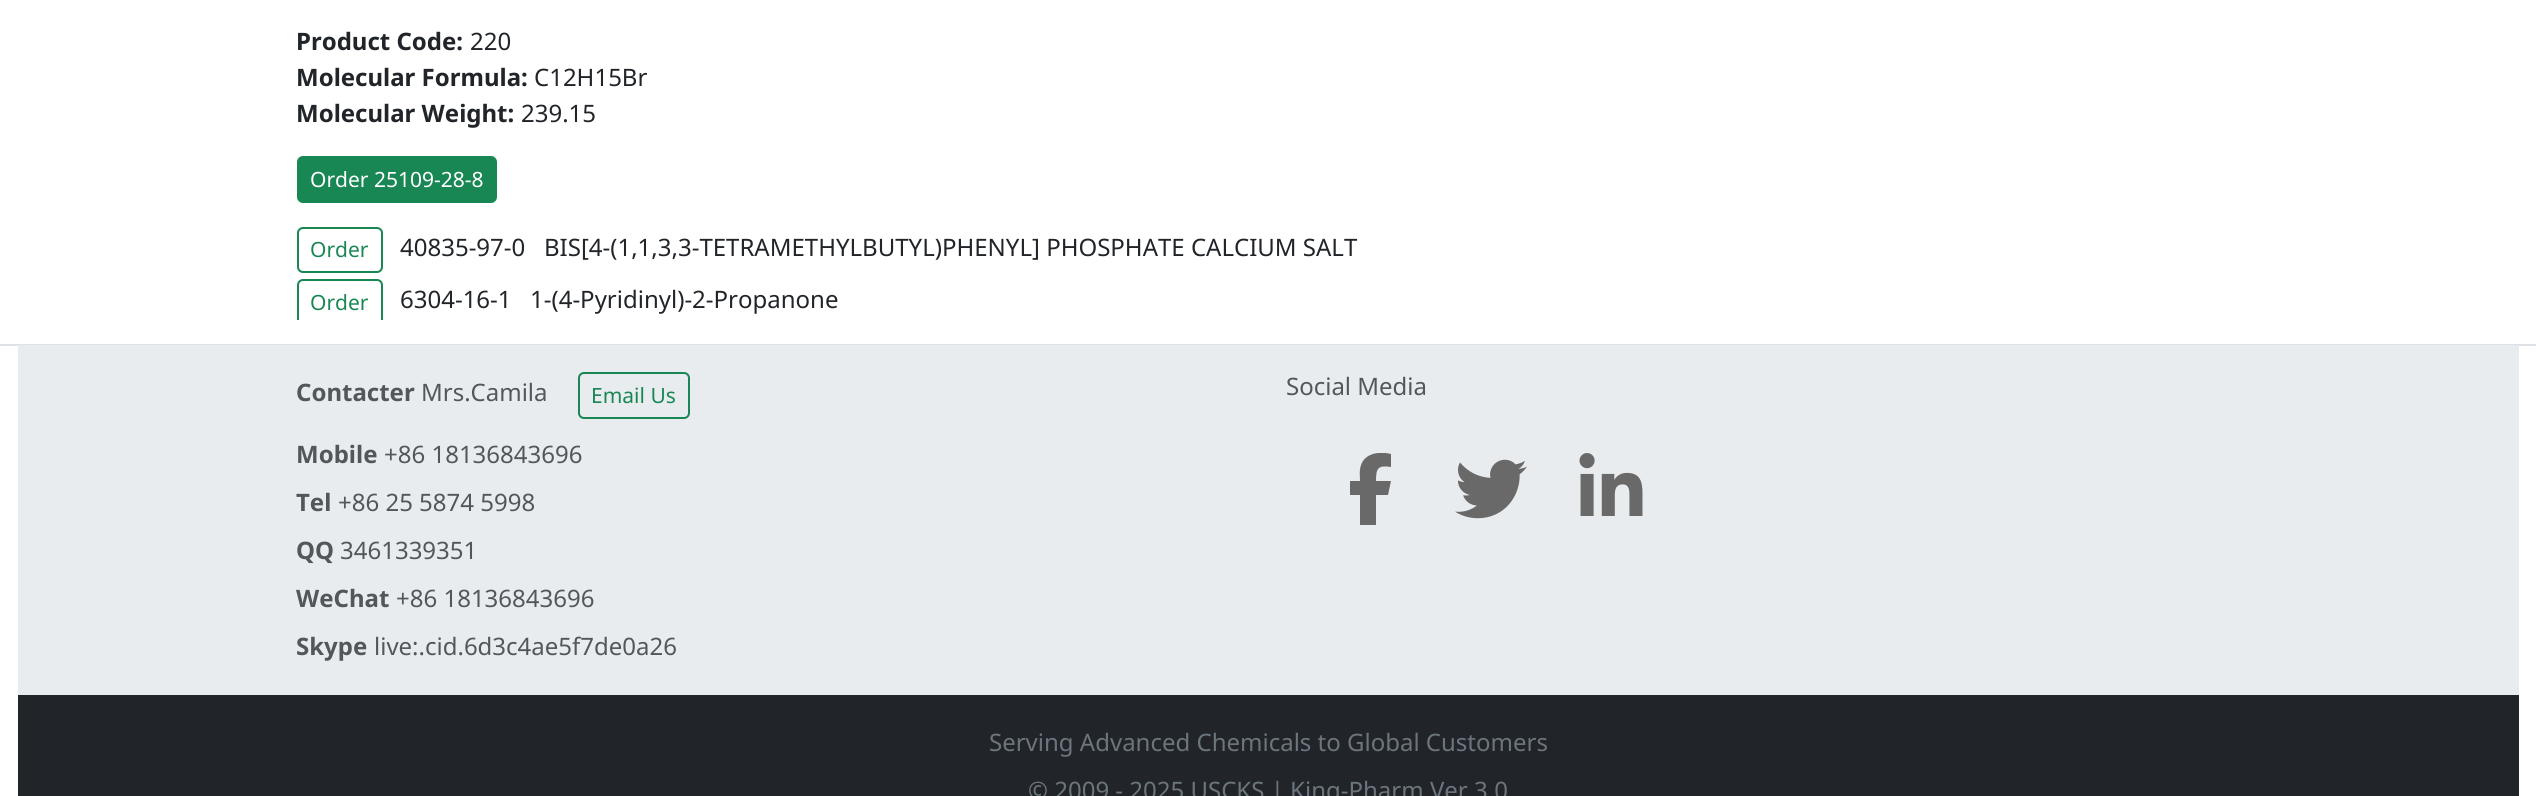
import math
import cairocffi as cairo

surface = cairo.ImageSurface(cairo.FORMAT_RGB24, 2536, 796)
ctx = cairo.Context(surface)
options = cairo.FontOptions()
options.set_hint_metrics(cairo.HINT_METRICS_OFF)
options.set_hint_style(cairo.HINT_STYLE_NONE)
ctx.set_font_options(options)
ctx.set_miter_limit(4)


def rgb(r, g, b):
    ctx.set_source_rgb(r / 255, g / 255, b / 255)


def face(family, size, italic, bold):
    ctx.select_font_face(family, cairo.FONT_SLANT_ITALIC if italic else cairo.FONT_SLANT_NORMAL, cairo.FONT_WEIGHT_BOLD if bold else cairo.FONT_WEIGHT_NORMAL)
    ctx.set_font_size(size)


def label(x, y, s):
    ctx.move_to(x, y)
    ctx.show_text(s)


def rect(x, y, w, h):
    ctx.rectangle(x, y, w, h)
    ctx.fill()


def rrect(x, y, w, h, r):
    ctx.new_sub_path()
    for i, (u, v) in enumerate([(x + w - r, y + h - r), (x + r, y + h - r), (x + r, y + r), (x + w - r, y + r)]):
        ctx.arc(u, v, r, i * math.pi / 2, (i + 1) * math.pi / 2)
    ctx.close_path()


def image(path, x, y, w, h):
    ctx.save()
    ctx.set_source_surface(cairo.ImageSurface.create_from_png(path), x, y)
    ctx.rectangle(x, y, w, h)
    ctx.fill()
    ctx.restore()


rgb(255, 255, 255)
ctx.paint()
face('Noto Sans', 24, 0, 1)
rgb(33, 37, 41)
label(296, 50, 'Product Code:')
face('Noto Sans', 24, 0, 0)
label(470, 50, '220')
face('Noto Sans', 24, 0, 1)
label(296, 86, 'Molecular Formula:')
face('Noto Sans', 24, 0, 0)
label(534, 86, 'C12H15Br')
face('Noto Sans', 24, 0, 1)
label(296, 122, 'Molecular Weight:')
face('Noto Sans', 24, 0, 0)
label(521, 122, '239.15')
rgb(25, 135, 84)
rrect(298, 157, 198, 45, 5)
ctx.fill_preserve()
ctx.stroke()
face('Noto Sans', 21, 0, 0)
rgb(255, 255, 255)
label(310, 187, 'Order 25109-28-8')
rrect(298, 228, 84, 44, 5)
rgb(25, 135, 84)
ctx.stroke()
label(310, 257, 'Order')
face('Noto Sans', 24, 0, 0)
rgb(33, 37, 41)
label(400, 256, '40835-97-0')
label(544, 256, 'BIS[4-(1,1,3,3-TETRAMETHYLBUTYL)PHENYL] PHOSPHATE CALCIUM SALT')
ctx.save()
ctx.rectangle(0, 0, 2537, 320)
ctx.clip()
rrect(298, 280, 84, 45, 5)
rgb(25, 135, 84)
ctx.stroke()
ctx.restore()
face('Noto Sans', 21, 0, 0)
rgb(25, 135, 84)
label(310, 310, 'Order')
face('Noto Sans', 24, 0, 0)
rgb(33, 37, 41)
label(400, 308, '6304-16-1')
label(530, 308, '1-(4-Pyridinyl)-2-Propanone')
rgb(222, 226, 230)
rect(0, 344, 2536, 2)
rgb(233, 236, 239)
rect(18, 345, 2501, 350)
face('Noto Sans', 24, 0, 1)
rgb(83, 87, 91)
label(296, 401, 'Contacter')
face('Noto Sans', 24, 0, 0)
label(421, 401, 'Mrs.Camila')
rrect(579, 373, 110, 45, 5)
rgb(25, 135, 84)
ctx.stroke()
face('Noto Sans', 21, 0, 0)
label(591, 403, 'Email Us')
face('Noto Sans', 24, 0, 1)
rgb(83, 87, 91)
label(296, 463, 'Mobile')
face('Noto Sans', 24, 0, 0)
label(384, 463, '+86 18136843696')
face('Noto Sans', 24, 0, 1)
label(296, 511, 'Tel')
face('Noto Sans', 24, 0, 0)
label(338, 511, '+86 25 5874 5998')
face('Noto Sans', 24, 0, 1)
label(296, 559, 'QQ')
face('Noto Sans', 24, 0, 0)
label(340, 559, '3461339351')
face('Noto Sans', 24, 0, 1)
label(296, 607, 'WeChat')
face('Noto Sans', 24, 0, 0)
label(396, 607, '+86 18136843696')
face('Noto Sans', 24, 0, 1)
label(296, 655, 'Skype')
face('Noto Sans', 24, 0, 0)
label(374, 655, 'live:.cid.6d3c4ae5f7de0a26')
label(1286, 395, 'Social Media')
ctx.save()
ctx.rectangle(1335, 453, 72, 72)
ctx.clip()
rgb(105, 105, 105)
ctx.new_path()
ctx.move_to(1360, 495)
ctx.line_to(1360, 525)
ctx.line_to(1376, 525)
ctx.line_to(1376, 495)
ctx.line_to(1388, 495)
ctx.line_to(1391, 481)
ctx.line_to(1376, 481)
ctx.curve_to(1376, 468, 1378, 465, 1391, 467)
ctx.line_to(1391, 454)
ctx.curve_to(1380, 451, 1365, 453, 1361, 465)
ctx.curve_to(1359, 471, 1360, 476, 1360, 481)
ctx.line_to(1350, 481)
ctx.line_to(1350, 495)
ctx.close_path()
ctx.fill()
ctx.restore()
image('image0.png', 1455, 459, 72, 60)
image('image1.png', 1579, 453, 64, 63)
rgb(33, 37, 41)
rect(18, 695, 2501, 101)
rgb(108, 117, 125)
label(989, 751, 'Serving Advanced Chemicals to Global Customers')
label(1028, 799, '© 2009 - 2025 USCKS | King-Pharm Ver 3.0')
surface.write_to_png('render.png')
